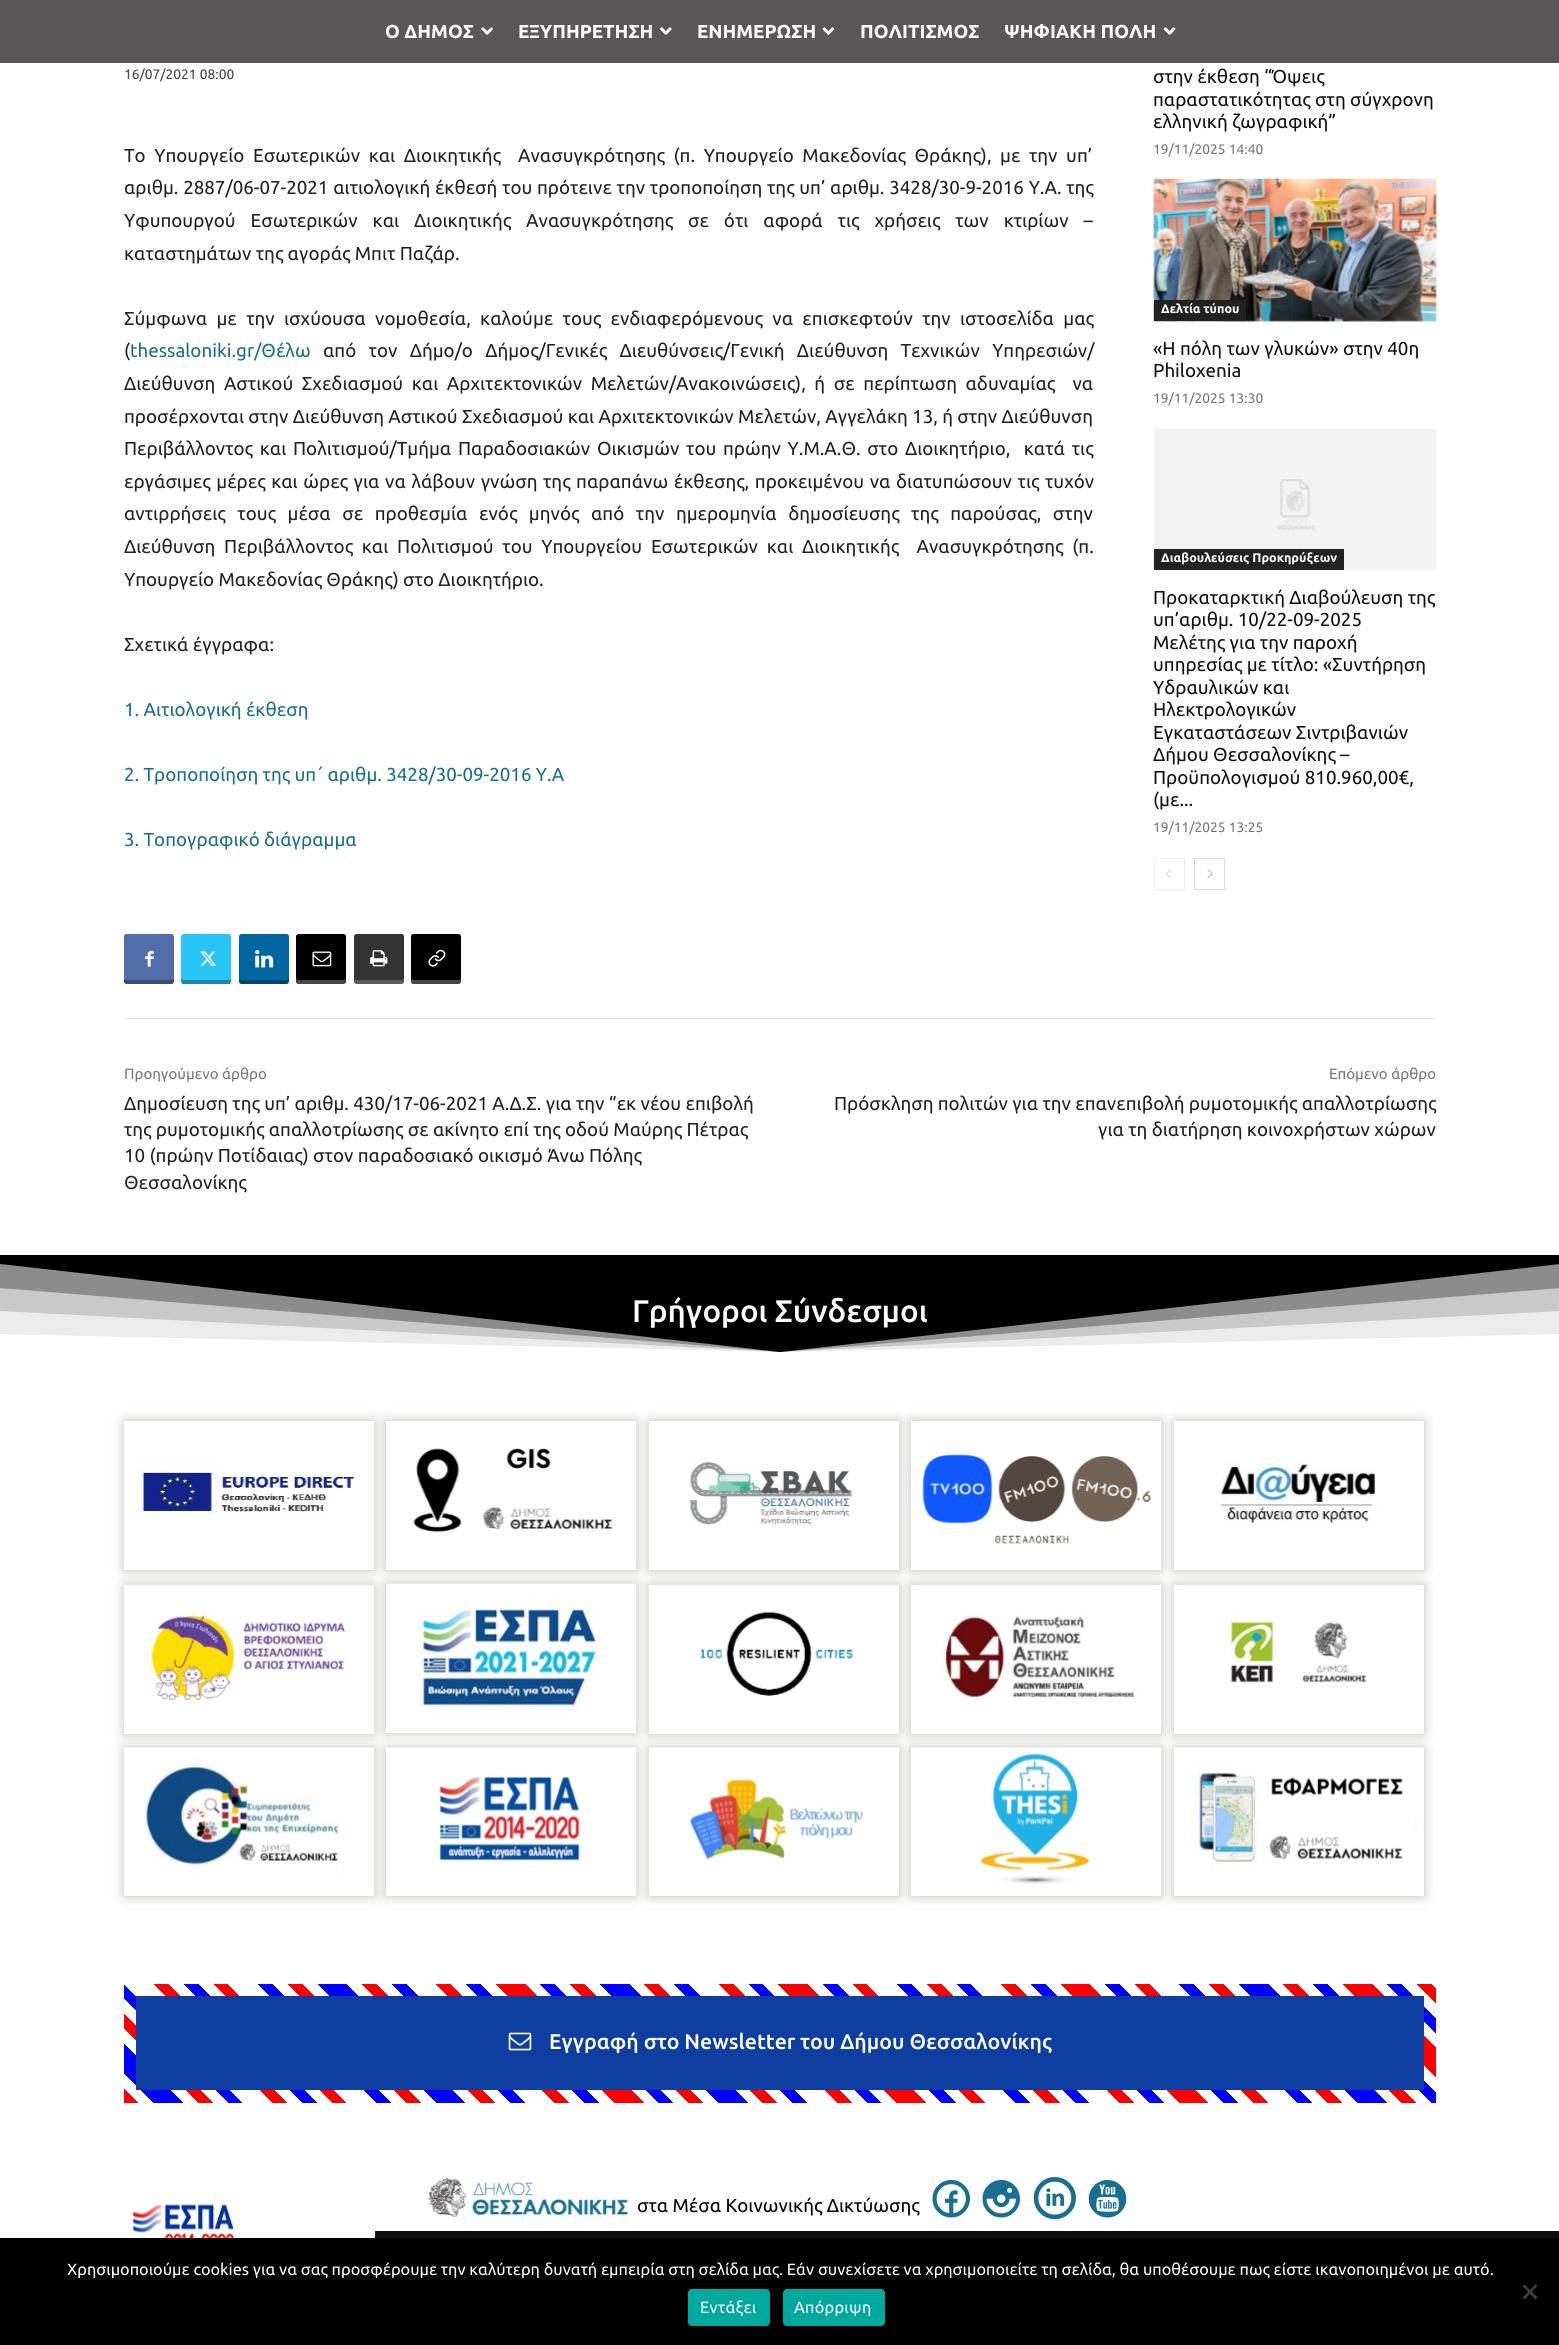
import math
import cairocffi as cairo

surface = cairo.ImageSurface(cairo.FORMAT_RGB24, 1559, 2345)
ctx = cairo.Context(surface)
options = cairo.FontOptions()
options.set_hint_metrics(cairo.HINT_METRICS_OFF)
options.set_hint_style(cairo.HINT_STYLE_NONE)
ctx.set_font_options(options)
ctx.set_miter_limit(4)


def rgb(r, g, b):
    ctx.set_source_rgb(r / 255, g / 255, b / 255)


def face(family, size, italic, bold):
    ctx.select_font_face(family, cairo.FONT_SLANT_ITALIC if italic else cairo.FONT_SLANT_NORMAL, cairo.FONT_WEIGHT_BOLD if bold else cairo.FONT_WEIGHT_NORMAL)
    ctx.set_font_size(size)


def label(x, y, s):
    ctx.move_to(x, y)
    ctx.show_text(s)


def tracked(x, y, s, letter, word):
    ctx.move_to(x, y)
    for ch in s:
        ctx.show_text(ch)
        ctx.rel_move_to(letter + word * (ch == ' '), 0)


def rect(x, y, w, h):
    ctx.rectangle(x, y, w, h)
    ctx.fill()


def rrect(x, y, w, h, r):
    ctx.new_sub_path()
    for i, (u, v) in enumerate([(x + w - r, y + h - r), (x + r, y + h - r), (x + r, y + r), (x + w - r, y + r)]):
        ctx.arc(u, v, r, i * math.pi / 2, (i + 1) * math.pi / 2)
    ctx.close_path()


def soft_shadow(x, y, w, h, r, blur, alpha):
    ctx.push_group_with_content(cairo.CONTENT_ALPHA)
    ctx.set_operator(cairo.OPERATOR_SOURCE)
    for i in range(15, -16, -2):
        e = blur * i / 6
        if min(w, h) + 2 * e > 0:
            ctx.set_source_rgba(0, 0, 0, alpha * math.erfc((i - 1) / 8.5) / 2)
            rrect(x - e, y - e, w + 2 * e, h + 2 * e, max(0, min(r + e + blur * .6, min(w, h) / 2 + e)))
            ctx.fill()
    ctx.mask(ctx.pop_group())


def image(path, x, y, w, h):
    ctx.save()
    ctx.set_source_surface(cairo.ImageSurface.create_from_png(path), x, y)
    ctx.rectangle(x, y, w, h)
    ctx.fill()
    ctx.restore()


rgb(255, 255, 255)
ctx.paint()
rgb(90, 87, 88)
rect(0, 0, 1559, 63)
face('Ubuntu', 18.75, 0, 1)
rgb(255, 255, 255)
label(385, 38, 'Ο ΔΗΜΟΣ')
image('image0.png', 481, 27, 12, 8)
label(518, 38, 'ΕΞΥΠΗΡΕΤΗΣΗ')
image('image1.png', 660, 27, 12, 8)
label(697, 38, 'ΕΝΗΜΕΡΩΣΗ')
image('image2.png', 822, 27, 13, 8)
label(860, 38, 'ΠΟΛΙΤΙΣΜΟΣ')
label(1004, 38, 'ΨΗΦΙΑΚΗ ΠΟΛΗ')
image('image3.png', 1163, 27, 13, 8)
face('Ubuntu', 13.75, 0, 0)
rgb(68, 68, 68)
label(124, 79, '16/07/2021 08:00')
face('Ubuntu', 18.75, 0, 0)
rgb(34, 34, 34)
tracked(124, 162, 'Το Υπουργείο Εσωτερικών και Διοικητικής  Ανασυγκρότησης (π. Υπουργείο Μακεδονίας Θράκης), με την υπ’', 0, 4.25)
tracked(124, 194, 'αριθμ. 2887/06-07-2021 αιτιολογική έκθεσή του πρότεινε την τροποποίηση της υπ’ αριθμ. 3428/30-9-2016 Υ.Α. της', 0, 0.4)
tracked(124, 227, 'Υφυπουργού Εσωτερικών και Διοικητικής Ανασυγκρότησης σε ότι αφορά τις χρήσεις των κτιρίων –', 0, 10.6)
label(124, 260, 'καταστημάτων της αγοράς Μπιτ Παζάρ.')
tracked(124, 325, 'Σύμφωνα με την ισχύουσα νομοθεσία, καλούμε τους ενδιαφερόμενους να επισκεφτούν την ιστοσελίδα μας', 0, 5)
label(124, 357, '(')
rgb(25, 111, 143)
label(130, 357, 'thessaloniki.gr/Θέλω')
rgb(34, 34, 34)
tracked(323, 357, 'από τον Δήμο/ο Δήμος/Γενικές Διευθύνσεις/Γενική Διεύθυνση Τεχνικών Υπηρεσιών/', 0, 8)
tracked(124, 390, 'Διεύθυνση Αστικού Σχεδιασμού και Αρχιτεκτονικών Μελετών/Ανακοινώσεις), ή σε περίπτωση αδυναμίας  να', 0, 4.25)
label(124, 423, 'προσέρχονται στην Διεύθυνση Αστικού Σχεδιασμού και Αρχιτεκτονικών Μελετών, Αγγελάκη 13, ή στην Διεύθυνση')
tracked(124, 455, 'Περιβάλλοντος και Πολιτισμού/Τμήμα Παραδοσιακών Οικισμών του πρώην Υ.Μ.Α.Θ. στο Διοικητήριο,  κατά τις', 0, 2.4)
tracked(124, 488, 'εργάσιμες μέρες και ώρες για να λάβουν γνώση της παραπάνω έκθεσης, προκειμένου να διατυπώσουν τις τυχόν', 0, 1.25)
tracked(124, 520, 'αντιρρήσεις τους μέσα σε προθεσμία ενός μηνός από την ημερομηνία δημοσίευσης της παρούσας, στην', 0, 7.25)
tracked(124, 553, 'Διεύθυνση Περιβάλλοντος και Πολιτισμού του Υπουργείου Εσωτερικών και Διοικητικής  Ανασυγκρότησης (π.', 0, 4.4)
label(124, 586, 'Υπουργείο Μακεδονίας Θράκης) στο Διοικητήριο.')
label(124, 651, 'Σχετικά έγγραφα:')
rgb(25, 111, 143)
label(124, 716, '1. Αιτιολογική έκθεση')
label(124, 781, '2. Τροποποίηση της υπ΄ αριθμ. 3428/30-09-2016 Υ.Α')
label(124, 846, '3. Τοπογραφικό διάγραμμα')
rgb(81, 110, 171)
rrect(124, 934, 50, 50, 2.5)
ctx.fill()
ctx.save()
ctx.rectangle(124, 934, 50, 50)
ctx.clip()
ctx.set_source_rgba(0, 0, 0, 0.31)
ctx.new_path()
ctx.move_to(124, 978)
ctx.curve_to(124, 986, 125, 984, 134, 984)
ctx.line_to(164, 984)
ctx.curve_to(173, 984, 174, 986, 174, 978)
ctx.curve_to(174, 979, 173, 980, 171, 980)
ctx.line_to(126, 980)
ctx.curve_to(125, 980, 124, 979, 124, 978)
ctx.close_path()
ctx.fill()
ctx.restore()
image('image4.png', 145, 950, 9, 17)
rgb(41, 197, 246)
rrect(181, 934, 50, 50, 2.5)
ctx.fill()
ctx.save()
ctx.rectangle(181, 934, 50, 50)
ctx.clip()
ctx.set_source_rgba(0, 0, 0, 0.31)
ctx.new_path()
ctx.move_to(181, 978)
ctx.curve_to(181, 986, 182, 984, 191, 984)
ctx.line_to(221, 984)
ctx.curve_to(230, 984, 231, 986, 231, 978)
ctx.curve_to(231, 979, 230, 980, 229, 980)
ctx.line_to(184, 980)
ctx.curve_to(182, 980, 181, 979, 181, 978)
ctx.close_path()
ctx.fill()
ctx.restore()
image('image5.png', 200, 951, 16, 15)
rgb(2, 102, 160)
rrect(239, 934, 50, 50, 2.5)
ctx.fill()
ctx.save()
ctx.rectangle(239, 934, 50, 50)
ctx.clip()
ctx.set_source_rgba(0, 0, 0, 0.31)
ctx.new_path()
ctx.move_to(239, 978)
ctx.curve_to(239, 986, 240, 984, 249, 984)
ctx.line_to(279, 984)
ctx.curve_to(288, 984, 289, 986, 289, 978)
ctx.curve_to(289, 979, 288, 980, 286, 980)
ctx.line_to(241, 980)
ctx.curve_to(240, 980, 239, 979, 239, 978)
ctx.close_path()
ctx.fill()
ctx.restore()
image('image6.png', 255, 950, 19, 18)
rgb(0, 0, 0)
rrect(296, 934, 50, 50, 2.5)
ctx.fill()
ctx.set_source_rgba(1, 1, 1, 0.28)
ctx.new_path()
ctx.move_to(296, 978)
ctx.curve_to(296, 986, 297, 984, 306, 984)
ctx.line_to(336, 984)
ctx.curve_to(345, 984, 346, 986, 346, 978)
ctx.curve_to(346, 979, 345, 980, 344, 980)
ctx.line_to(299, 980)
ctx.curve_to(297, 980, 296, 979, 296, 978)
ctx.close_path()
ctx.fill()
image('image7.png', 312, 951, 20, 16)
rgb(51, 51, 51)
rrect(354, 934, 50, 50, 2.5)
ctx.fill()
ctx.set_source_rgba(1, 1, 1, 0.2)
ctx.new_path()
ctx.move_to(354, 978)
ctx.curve_to(354, 986, 355, 984, 364, 984)
ctx.line_to(394, 984)
ctx.curve_to(403, 984, 404, 986, 404, 978)
ctx.curve_to(404, 979, 403, 980, 401, 980)
ctx.line_to(356, 980)
ctx.curve_to(355, 980, 354, 979, 354, 978)
ctx.close_path()
ctx.fill()
image('image8.png', 370, 950, 18, 17)
rgb(0, 0, 0)
rrect(411, 934, 50, 50, 2.5)
ctx.fill()
ctx.set_source_rgba(1, 1, 1, 0.28)
ctx.new_path()
ctx.move_to(411, 978)
ctx.curve_to(411, 986, 412, 984, 421, 984)
ctx.line_to(451, 984)
ctx.curve_to(460, 984, 461, 986, 461, 978)
ctx.curve_to(461, 979, 460, 980, 459, 980)
ctx.line_to(414, 980)
ctx.curve_to(412, 980, 411, 979, 411, 978)
ctx.close_path()
ctx.fill()
image('image9.png', 428, 949, 18, 18)
rgb(17, 17, 17)
label(1153, 83, 'στην έκθεση “Όψεις')
label(1153, 106, 'παραστατικότητας στη σύγχρονη')
label(1153, 128, 'ελληνική ζωγραφική”')
face('Ubuntu', 13.75, 0, 0)
rgb(118, 118, 118)
label(1153, 154, '19/11/2025 14:40')
image('image11.png', 1153, 179, 284, 143)
image('image10.png', 1153, 178, 284, 144)
rgb(34, 34, 34)
rect(1154, 300, 92, 21)
face('Ubuntu', 12.5, 0, 1)
rgb(255, 255, 255)
label(1161, 313, 'Δελτία τύπου')
face('Ubuntu', 18.75, 0, 0)
rgb(17, 17, 17)
label(1153, 355, '«Η πόλη των γλυκών» στην 40η')
label(1153, 377, 'Philoxenia')
face('Ubuntu', 13.75, 0, 0)
rgb(118, 118, 118)
label(1153, 403, '19/11/2025 13:30')
image('image12.png', 1153, 428, 284, 143)
image('image13.png', 1278, 480, 37, 50)
rgb(34, 34, 34)
rect(1154, 549, 190, 21)
face('Ubuntu', 12.5, 0, 1)
rgb(255, 255, 255)
label(1161, 562, 'Διαβουλεύσεις Προκηρύξεων')
face('Ubuntu', 18.75, 0, 0)
rgb(17, 17, 17)
label(1153, 604, 'Προκαταρκτική Διαβούλευση της')
label(1153, 626, 'υπ’αριθμ. 10/22-09-2025')
label(1153, 649, 'Μελέτης για την παροχή')
label(1153, 671, 'υπηρεσίας με τίτλο: «Συντήρηση')
label(1153, 694, 'Υδραυλικών και')
label(1153, 716, 'Ηλεκτρολογικών')
label(1153, 739, 'Εγκαταστάσεων Σιντριβανιών')
label(1153, 761, 'Δήμου Θεσσαλονίκης –')
label(1153, 784, 'Προϋπολογισμού 810.960,00€,')
label(1153, 806, '(με...')
face('Ubuntu', 13.75, 0, 0)
rgb(118, 118, 118)
label(1153, 832, '19/11/2025 13:25')
ctx.rectangle(1154.5, 858.5, 30, 31)
rgb(238, 238, 238)
ctx.set_line_width(1)
ctx.stroke()
image('image14.png', 1166, 869, 5, 9)
ctx.rectangle(1194.5, 858.5, 30, 31)
rgb(220, 220, 220)
ctx.stroke()
image('image15.png', 1207, 869, 6, 9)
rgb(235, 235, 235)
rect(124, 1018, 1312, 1)
face('Ubuntu', 15, 0, 0)
rgb(118, 118, 118)
label(124, 1079, 'Προηγούμενο άρθρο')
face('Ubuntu', 18.75, 0, 0)
rgb(34, 34, 34)
label(124, 1110, 'Δημοσίευση της υπ’ αριθμ. 430/17-06-2021 Α.Δ.Σ. για την “εκ νέου επιβολή')
label(124, 1136, 'της ρυμοτομικής απαλλοτρίωσης σε ακίνητο επί της οδού Μαύρης Πέτρας')
label(124, 1162, '10 (πρώην Ποτίδαιας) στον παραδοσιακό οικισμό Άνω Πόλης')
label(124, 1189, 'Θεσσαλονίκης')
face('Ubuntu', 15, 0, 0)
rgb(118, 118, 118)
label(1329, 1079, 'Επόμενο άρθρο')
face('Ubuntu', 18.75, 0, 0)
rgb(34, 34, 34)
label(834, 1110, 'Πρόσκληση πολιτών για την επανεπιβολή ρυμοτομικής απαλλοτρίωσης')
label(1098, 1136, 'για τη διατήρηση κοινοχρήστων χώρων')
ctx.save()
ctx.rectangle(0, 1255, 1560, 313)
ctx.clip()
rgb(0, 0, 0)
ctx.new_path()
ctx.move_to(0, 1021)
ctx.line_to(0, 1264)
ctx.line_to(780, 1352)
ctx.line_to(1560, 1264)
ctx.line_to(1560, 1021)
ctx.close_path()
ctx.fill()
ctx.set_source_rgba(0, 0, 0, 0.3)
ctx.new_path()
ctx.move_to(0, 1021)
ctx.line_to(0, 1288)
ctx.line_to(780, 1352)
ctx.line_to(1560, 1288)
ctx.line_to(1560, 1021)
ctx.close_path()
ctx.fill()
ctx.set_source_rgba(0, 0, 0, 0.15)
ctx.new_path()
ctx.move_to(0, 1021)
ctx.line_to(0, 1311)
ctx.line_to(780, 1352)
ctx.line_to(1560, 1311)
ctx.line_to(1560, 1021)
ctx.close_path()
ctx.fill()
ctx.set_source_rgba(0, 0, 0, 0.08)
ctx.new_path()
ctx.move_to(0, 1021)
ctx.line_to(0, 1334)
ctx.line_to(780, 1352)
ctx.line_to(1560, 1334)
ctx.line_to(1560, 1021)
ctx.close_path()
ctx.fill()
ctx.restore()
face('Ubuntu Medium', 31.25, 0, 0)
rgb(255, 255, 255)
label(632, 1322, 'Γρήγοροι Σύνδεσμοι')
ctx.save()
ctx.set_fill_rule(cairo.FILL_RULE_EVEN_ODD)
ctx.new_path()
ctx.move_to(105, 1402)
ctx.line_to(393, 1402)
ctx.line_to(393, 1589)
ctx.line_to(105, 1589)
ctx.close_path()
ctx.move_to(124, 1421)
ctx.line_to(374, 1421)
ctx.line_to(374, 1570)
ctx.line_to(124, 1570)
ctx.close_path()
ctx.clip()
rgb(191, 190, 188)
soft_shadow(124, 1421, 250, 149, 0, 6, 1)
ctx.restore()
image('image16.png', 123, 1421, 251, 141)
ctx.save()
ctx.set_fill_rule(cairo.FILL_RULE_EVEN_ODD)
ctx.new_path()
ctx.move_to(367, 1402)
ctx.line_to(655, 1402)
ctx.line_to(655, 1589)
ctx.line_to(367, 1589)
ctx.close_path()
ctx.move_to(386, 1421)
ctx.line_to(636, 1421)
ctx.line_to(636, 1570)
ctx.line_to(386, 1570)
ctx.close_path()
ctx.clip()
rgb(191, 190, 188)
soft_shadow(386, 1421, 250, 149, 0, 6, 1)
ctx.restore()
image('image17.png', 386, 1421, 251, 141)
ctx.save()
ctx.set_fill_rule(cairo.FILL_RULE_EVEN_ODD)
ctx.new_path()
ctx.move_to(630, 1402)
ctx.line_to(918, 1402)
ctx.line_to(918, 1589)
ctx.line_to(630, 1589)
ctx.close_path()
ctx.move_to(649, 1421)
ctx.line_to(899, 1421)
ctx.line_to(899, 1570)
ctx.line_to(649, 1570)
ctx.close_path()
ctx.clip()
rgb(191, 190, 188)
soft_shadow(649, 1421, 250, 149, 0, 6, 1)
ctx.restore()
image('image18.png', 648, 1421, 251, 141)
ctx.save()
ctx.set_fill_rule(cairo.FILL_RULE_EVEN_ODD)
ctx.new_path()
ctx.move_to(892, 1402)
ctx.line_to(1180, 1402)
ctx.line_to(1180, 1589)
ctx.line_to(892, 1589)
ctx.close_path()
ctx.move_to(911, 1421)
ctx.line_to(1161, 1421)
ctx.line_to(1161, 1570)
ctx.line_to(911, 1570)
ctx.close_path()
ctx.clip()
rgb(191, 190, 188)
soft_shadow(911, 1421, 250, 149, 0, 6, 1)
ctx.restore()
image('image19.png', 911, 1421, 251, 141)
ctx.save()
ctx.set_fill_rule(cairo.FILL_RULE_EVEN_ODD)
ctx.new_path()
ctx.move_to(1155, 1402)
ctx.line_to(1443, 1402)
ctx.line_to(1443, 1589)
ctx.line_to(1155, 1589)
ctx.close_path()
ctx.move_to(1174, 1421)
ctx.line_to(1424, 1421)
ctx.line_to(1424, 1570)
ctx.line_to(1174, 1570)
ctx.close_path()
ctx.clip()
rgb(191, 190, 188)
soft_shadow(1174, 1421, 250, 149, 0, 6, 1)
ctx.restore()
image('image20.png', 1173, 1421, 251, 141)
ctx.save()
ctx.set_fill_rule(cairo.FILL_RULE_EVEN_ODD)
ctx.new_path()
ctx.move_to(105, 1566)
ctx.line_to(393, 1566)
ctx.line_to(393, 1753)
ctx.line_to(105, 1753)
ctx.close_path()
ctx.move_to(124, 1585)
ctx.line_to(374, 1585)
ctx.line_to(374, 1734)
ctx.line_to(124, 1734)
ctx.close_path()
ctx.clip()
rgb(191, 190, 188)
soft_shadow(124, 1585, 250, 149, 0, 6, 1)
ctx.restore()
image('image21.png', 123, 1584, 251, 142)
rgb(191, 190, 188)
soft_shadow(386, 1584, 250, 149, 0, 6, 1)
rgb(255, 255, 255)
rect(386, 1584, 250, 149)
image('image22.png', 386, 1583, 251, 142)
ctx.save()
ctx.set_fill_rule(cairo.FILL_RULE_EVEN_ODD)
ctx.new_path()
ctx.move_to(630, 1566)
ctx.line_to(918, 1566)
ctx.line_to(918, 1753)
ctx.line_to(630, 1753)
ctx.close_path()
ctx.move_to(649, 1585)
ctx.line_to(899, 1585)
ctx.line_to(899, 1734)
ctx.line_to(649, 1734)
ctx.close_path()
ctx.clip()
rgb(191, 190, 188)
soft_shadow(649, 1585, 250, 149, 0, 6, 1)
ctx.restore()
image('image23.png', 648, 1584, 251, 142)
ctx.save()
ctx.set_fill_rule(cairo.FILL_RULE_EVEN_ODD)
ctx.new_path()
ctx.move_to(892, 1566)
ctx.line_to(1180, 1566)
ctx.line_to(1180, 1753)
ctx.line_to(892, 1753)
ctx.close_path()
ctx.move_to(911, 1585)
ctx.line_to(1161, 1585)
ctx.line_to(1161, 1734)
ctx.line_to(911, 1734)
ctx.close_path()
ctx.clip()
rgb(191, 190, 188)
soft_shadow(911, 1585, 250, 149, 0, 6, 1)
ctx.restore()
image('image24.png', 911, 1584, 251, 142)
ctx.save()
ctx.set_fill_rule(cairo.FILL_RULE_EVEN_ODD)
ctx.new_path()
ctx.move_to(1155, 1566)
ctx.line_to(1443, 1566)
ctx.line_to(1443, 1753)
ctx.line_to(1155, 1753)
ctx.close_path()
ctx.move_to(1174, 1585)
ctx.line_to(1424, 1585)
ctx.line_to(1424, 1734)
ctx.line_to(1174, 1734)
ctx.close_path()
ctx.clip()
rgb(191, 190, 188)
soft_shadow(1174, 1585, 250, 149, 0, 6, 1)
ctx.restore()
image('image25.png', 1173, 1584, 251, 142)
ctx.save()
ctx.set_fill_rule(cairo.FILL_RULE_EVEN_ODD)
ctx.new_path()
ctx.move_to(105, 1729)
ctx.line_to(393, 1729)
ctx.line_to(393, 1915)
ctx.line_to(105, 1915)
ctx.close_path()
ctx.move_to(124, 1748)
ctx.line_to(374, 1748)
ctx.line_to(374, 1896)
ctx.line_to(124, 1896)
ctx.close_path()
ctx.clip()
rgb(191, 190, 188)
soft_shadow(124, 1748, 250, 148, 0, 6, 1)
ctx.restore()
image('image26.png', 123, 1747, 251, 141)
ctx.save()
ctx.set_fill_rule(cairo.FILL_RULE_EVEN_ODD)
ctx.new_path()
ctx.move_to(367, 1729)
ctx.line_to(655, 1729)
ctx.line_to(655, 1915)
ctx.line_to(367, 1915)
ctx.close_path()
ctx.move_to(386, 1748)
ctx.line_to(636, 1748)
ctx.line_to(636, 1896)
ctx.line_to(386, 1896)
ctx.close_path()
ctx.clip()
rgb(191, 190, 188)
soft_shadow(386, 1748, 250, 148, 0, 6, 1)
ctx.restore()
image('image27.png', 386, 1747, 251, 142)
ctx.save()
ctx.set_fill_rule(cairo.FILL_RULE_EVEN_ODD)
ctx.new_path()
ctx.move_to(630, 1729)
ctx.line_to(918, 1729)
ctx.line_to(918, 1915)
ctx.line_to(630, 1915)
ctx.close_path()
ctx.move_to(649, 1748)
ctx.line_to(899, 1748)
ctx.line_to(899, 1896)
ctx.line_to(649, 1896)
ctx.close_path()
ctx.clip()
rgb(191, 190, 188)
soft_shadow(649, 1748, 250, 148, 0, 6, 1)
ctx.restore()
image('image28.png', 648, 1747, 251, 141)
ctx.save()
ctx.set_fill_rule(cairo.FILL_RULE_EVEN_ODD)
ctx.new_path()
ctx.move_to(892, 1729)
ctx.line_to(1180, 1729)
ctx.line_to(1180, 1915)
ctx.line_to(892, 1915)
ctx.close_path()
ctx.move_to(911, 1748)
ctx.line_to(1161, 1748)
ctx.line_to(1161, 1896)
ctx.line_to(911, 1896)
ctx.close_path()
ctx.clip()
rgb(191, 190, 188)
soft_shadow(911, 1748, 250, 148, 0, 6, 1)
ctx.restore()
image('image29.png', 911, 1747, 251, 142)
ctx.save()
ctx.set_fill_rule(cairo.FILL_RULE_EVEN_ODD)
ctx.new_path()
ctx.move_to(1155, 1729)
ctx.line_to(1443, 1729)
ctx.line_to(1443, 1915)
ctx.line_to(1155, 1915)
ctx.close_path()
ctx.move_to(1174, 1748)
ctx.line_to(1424, 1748)
ctx.line_to(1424, 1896)
ctx.line_to(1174, 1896)
ctx.close_path()
ctx.clip()
rgb(191, 190, 188)
soft_shadow(1174, 1748, 250, 148, 0, 6, 1)
ctx.restore()
image('image30.png', 1173, 1747, 251, 141)
gradient = cairo.LinearGradient(422, 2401, 1165, 1658)
gradient.add_color_stop_rgba(0, 1, 0, 0, 1)
gradient.add_color_stop_rgba(0.01, 1, 0, 0, 1)
gradient.add_color_stop_rgba(0.01, 1, 1, 1, 1)
gradient.add_color_stop_rgba(0.02, 1, 1, 1, 1)
gradient.add_color_stop_rgba(0.02, 0, 0, 1, 1)
gradient.add_color_stop_rgba(0.04, 0, 0, 1, 1)
gradient.add_color_stop_rgba(0.04, 1, 1, 1, 1)
gradient.add_color_stop_rgba(0.05, 1, 1, 1, 1)
gradient.add_color_stop_rgba(0.05, 1, 0, 0, 1)
gradient.add_color_stop_rgba(0.06, 1, 0, 0, 1)
gradient.add_color_stop_rgba(0.06, 1, 1, 1, 1)
gradient.add_color_stop_rgba(0.07, 1, 1, 1, 1)
gradient.add_color_stop_rgba(0.07, 0, 0, 1, 1)
gradient.add_color_stop_rgba(0.08, 0, 0, 1, 1)
gradient.add_color_stop_rgba(0.08, 1, 1, 1, 1)
gradient.add_color_stop_rgba(0.1, 1, 1, 1, 1)
gradient.add_color_stop_rgba(0.1, 1, 0, 0, 1)
gradient.add_color_stop_rgba(0.11, 1, 0, 0, 1)
gradient.add_color_stop_rgba(0.11, 1, 1, 1, 1)
gradient.add_color_stop_rgba(0.12, 1, 1, 1, 1)
gradient.add_color_stop_rgba(0.12, 0, 0, 1, 1)
gradient.add_color_stop_rgba(0.13, 0, 0, 1, 1)
gradient.add_color_stop_rgba(0.13, 1, 1, 1, 1)
gradient.add_color_stop_rgba(0.14, 1, 1, 1, 1)
gradient.add_color_stop_rgba(0.14, 1, 0, 0, 1)
gradient.add_color_stop_rgba(0.15, 1, 0, 0, 1)
gradient.add_color_stop_rgba(0.15, 1, 1, 1, 1)
gradient.add_color_stop_rgba(0.17, 1, 1, 1, 1)
gradient.add_color_stop_rgba(0.17, 0, 0, 1, 1)
gradient.add_color_stop_rgba(0.18, 0, 0, 1, 1)
gradient.add_color_stop_rgba(0.18, 1, 1, 1, 1)
gradient.add_color_stop_rgba(0.19, 1, 1, 1, 1)
gradient.add_color_stop_rgba(0.19, 1, 0, 0, 1)
gradient.add_color_stop_rgba(0.2, 1, 0, 0, 1)
gradient.add_color_stop_rgba(0.2, 1, 1, 1, 1)
gradient.add_color_stop_rgba(0.21, 1, 1, 1, 1)
gradient.add_color_stop_rgba(0.21, 0, 0, 1, 1)
gradient.add_color_stop_rgba(0.23, 0, 0, 1, 1)
gradient.add_color_stop_rgba(0.23, 1, 1, 1, 1)
gradient.add_color_stop_rgba(0.24, 1, 1, 1, 1)
gradient.add_color_stop_rgba(0.24, 1, 0, 0, 1)
gradient.add_color_stop_rgba(0.25, 1, 0, 0, 1)
gradient.add_color_stop_rgba(0.25, 1, 1, 1, 1)
gradient.add_color_stop_rgba(0.26, 1, 1, 1, 1)
gradient.add_color_stop_rgba(0.26, 0, 0, 1, 1)
gradient.add_color_stop_rgba(0.27, 0, 0, 1, 1)
gradient.add_color_stop_rgba(0.27, 1, 1, 1, 1)
gradient.add_color_stop_rgba(0.29, 1, 1, 1, 1)
gradient.add_color_stop_rgba(0.29, 1, 0, 0, 1)
gradient.add_color_stop_rgba(0.3, 1, 0, 0, 1)
gradient.add_color_stop_rgba(0.3, 1, 1, 1, 1)
gradient.add_color_stop_rgba(0.31, 1, 1, 1, 1)
gradient.add_color_stop_rgba(0.31, 0, 0, 1, 1)
gradient.add_color_stop_rgba(0.32, 0, 0, 1, 1)
gradient.add_color_stop_rgba(0.32, 1, 1, 1, 1)
gradient.add_color_stop_rgba(0.33, 1, 1, 1, 1)
gradient.add_color_stop_rgba(0.33, 1, 0, 0, 1)
gradient.add_color_stop_rgba(0.35, 1, 0, 0, 1)
gradient.add_color_stop_rgba(0.35, 1, 1, 1, 1)
gradient.add_color_stop_rgba(0.36, 1, 1, 1, 1)
gradient.add_color_stop_rgba(0.36, 0, 0, 1, 1)
gradient.add_color_stop_rgba(0.37, 0, 0, 1, 1)
gradient.add_color_stop_rgba(0.37, 1, 1, 1, 1)
gradient.add_color_stop_rgba(0.38, 1, 1, 1, 1)
gradient.add_color_stop_rgba(0.38, 1, 0, 0, 1)
gradient.add_color_stop_rgba(0.39, 1, 0, 0, 1)
gradient.add_color_stop_rgba(0.39, 1, 1, 1, 1)
gradient.add_color_stop_rgba(0.4, 1, 1, 1, 1)
gradient.add_color_stop_rgba(0.4, 0, 0, 1, 1)
gradient.add_color_stop_rgba(0.42, 0, 0, 1, 1)
gradient.add_color_stop_rgba(0.42, 1, 1, 1, 1)
gradient.add_color_stop_rgba(0.43, 1, 1, 1, 1)
gradient.add_color_stop_rgba(0.43, 1, 0, 0, 1)
gradient.add_color_stop_rgba(0.44, 1, 0, 0, 1)
gradient.add_color_stop_rgba(0.44, 1, 1, 1, 1)
gradient.add_color_stop_rgba(0.45, 1, 1, 1, 1)
gradient.add_color_stop_rgba(0.45, 0, 0, 1, 1)
gradient.add_color_stop_rgba(0.46, 0, 0, 1, 1)
gradient.add_color_stop_rgba(0.46, 1, 1, 1, 1)
gradient.add_color_stop_rgba(0.48, 1, 1, 1, 1)
gradient.add_color_stop_rgba(0.48, 1, 0, 0, 1)
gradient.add_color_stop_rgba(0.49, 1, 0, 0, 1)
gradient.add_color_stop_rgba(0.49, 1, 1, 1, 1)
gradient.add_color_stop_rgba(0.5, 1, 1, 1, 1)
gradient.add_color_stop_rgba(0.5, 0, 0, 1, 1)
gradient.add_color_stop_rgba(0.51, 0, 0, 1, 1)
gradient.add_color_stop_rgba(0.51, 1, 1, 1, 1)
gradient.add_color_stop_rgba(0.52, 1, 1, 1, 1)
gradient.add_color_stop_rgba(0.52, 1, 0, 0, 1)
gradient.add_color_stop_rgba(0.54, 1, 0, 0, 1)
gradient.add_color_stop_rgba(0.54, 1, 1, 1, 1)
gradient.add_color_stop_rgba(0.55, 1, 1, 1, 1)
gradient.add_color_stop_rgba(0.55, 0, 0, 1, 1)
gradient.add_color_stop_rgba(0.56, 0, 0, 1, 1)
gradient.add_color_stop_rgba(0.56, 1, 1, 1, 1)
gradient.add_color_stop_rgba(0.57, 1, 1, 1, 1)
gradient.add_color_stop_rgba(0.57, 1, 0, 0, 1)
gradient.add_color_stop_rgba(0.58, 1, 0, 0, 1)
gradient.add_color_stop_rgba(0.58, 1, 1, 1, 1)
gradient.add_color_stop_rgba(0.6, 1, 1, 1, 1)
gradient.add_color_stop_rgba(0.6, 0, 0, 1, 1)
gradient.add_color_stop_rgba(0.61, 0, 0, 1, 1)
gradient.add_color_stop_rgba(0.61, 1, 1, 1, 1)
gradient.add_color_stop_rgba(0.62, 1, 1, 1, 1)
gradient.add_color_stop_rgba(0.62, 1, 0, 0, 1)
gradient.add_color_stop_rgba(0.63, 1, 0, 0, 1)
gradient.add_color_stop_rgba(0.63, 1, 1, 1, 1)
gradient.add_color_stop_rgba(0.64, 1, 1, 1, 1)
gradient.add_color_stop_rgba(0.64, 0, 0, 1, 1)
gradient.add_color_stop_rgba(0.65, 0, 0, 1, 1)
gradient.add_color_stop_rgba(0.65, 1, 1, 1, 1)
gradient.add_color_stop_rgba(0.67, 1, 1, 1, 1)
gradient.add_color_stop_rgba(0.67, 1, 0, 0, 1)
gradient.add_color_stop_rgba(0.68, 1, 0, 0, 1)
gradient.add_color_stop_rgba(0.68, 1, 1, 1, 1)
gradient.add_color_stop_rgba(0.69, 1, 1, 1, 1)
gradient.add_color_stop_rgba(0.69, 0, 0, 1, 1)
gradient.add_color_stop_rgba(0.7, 0, 0, 1, 1)
gradient.add_color_stop_rgba(0.7, 1, 1, 1, 1)
gradient.add_color_stop_rgba(0.71, 1, 1, 1, 1)
gradient.add_color_stop_rgba(0.71, 1, 0, 0, 1)
gradient.add_color_stop_rgba(0.73, 1, 0, 0, 1)
gradient.add_color_stop_rgba(0.73, 1, 1, 1, 1)
gradient.add_color_stop_rgba(0.74, 1, 1, 1, 1)
gradient.add_color_stop_rgba(0.74, 0, 0, 1, 1)
gradient.add_color_stop_rgba(0.75, 0, 0, 1, 1)
gradient.add_color_stop_rgba(0.75, 1, 1, 1, 1)
gradient.add_color_stop_rgba(0.76, 1, 1, 1, 1)
gradient.add_color_stop_rgba(0.76, 1, 0, 0, 1)
gradient.add_color_stop_rgba(0.77, 1, 0, 0, 1)
gradient.add_color_stop_rgba(0.77, 1, 1, 1, 1)
gradient.add_color_stop_rgba(0.79, 1, 1, 1, 1)
gradient.add_color_stop_rgba(0.79, 0, 0, 1, 1)
gradient.add_color_stop_rgba(0.8, 0, 0, 1, 1)
gradient.add_color_stop_rgba(0.8, 1, 1, 1, 1)
gradient.add_color_stop_rgba(0.81, 1, 1, 1, 1)
gradient.add_color_stop_rgba(0.81, 1, 0, 0, 1)
gradient.add_color_stop_rgba(0.82, 1, 0, 0, 1)
gradient.add_color_stop_rgba(0.82, 1, 1, 1, 1)
gradient.add_color_stop_rgba(0.83, 1, 1, 1, 1)
gradient.add_color_stop_rgba(0.83, 0, 0, 1, 1)
gradient.add_color_stop_rgba(0.85, 0, 0, 1, 1)
gradient.add_color_stop_rgba(0.85, 1, 1, 1, 1)
gradient.add_color_stop_rgba(0.86, 1, 1, 1, 1)
gradient.add_color_stop_rgba(0.86, 1, 0, 0, 1)
gradient.add_color_stop_rgba(0.87, 1, 0, 0, 1)
gradient.add_color_stop_rgba(0.87, 1, 1, 1, 1)
gradient.add_color_stop_rgba(0.88, 1, 1, 1, 1)
gradient.add_color_stop_rgba(0.88, 0, 0, 1, 1)
gradient.add_color_stop_rgba(0.89, 0, 0, 1, 1)
gradient.add_color_stop_rgba(0.89, 1, 1, 1, 1)
gradient.add_color_stop_rgba(0.9, 1, 1, 1, 1)
gradient.add_color_stop_rgba(0.9, 1, 0, 0, 1)
gradient.add_color_stop_rgba(0.92, 1, 0, 0, 1)
gradient.add_color_stop_rgba(0.92, 1, 1, 1, 1)
gradient.add_color_stop_rgba(0.93, 1, 1, 1, 1)
gradient.add_color_stop_rgba(0.93, 0, 0, 1, 1)
gradient.add_color_stop_rgba(0.94, 0, 0, 1, 1)
gradient.add_color_stop_rgba(0.94, 1, 1, 1, 1)
gradient.add_color_stop_rgba(0.95, 1, 1, 1, 1)
gradient.add_color_stop_rgba(0.95, 1, 0, 0, 1)
gradient.add_color_stop_rgba(0.96, 1, 0, 0, 1)
gradient.add_color_stop_rgba(0.96, 1, 1, 1, 1)
gradient.add_color_stop_rgba(0.98, 1, 1, 1, 1)
gradient.add_color_stop_rgba(0.98, 0, 0, 1, 1)
gradient.add_color_stop_rgba(0.99, 0, 0, 1, 1)
gradient.add_color_stop_rgba(0.99, 1, 1, 1, 1)
gradient.add_color_stop_rgba(1, 1, 1, 1, 1)
ctx.set_source(gradient)
rect(124, 1984, 1312, 119)
rgb(14, 63, 160)
rect(136, 1996, 1288, 94)
image('image31.png', 508, 2032, 24, 19)
face('Ubuntu Medium', 21.25, 0, 0)
rgb(255, 255, 255)
label(549, 2049, 'Εγγραφή στο Newsletter του Δήμου Θεσσαλονίκης')
image('image32.png', 428, 2178, 200, 40)
face('Ubuntu', 18.75, 0, 0)
rgb(0, 0, 0)
label(637, 2212, 'στα Μέσα Κοινωνικής Δικτύωσης')
image('image33.png', 932, 2180, 38, 38)
image('image34.png', 982, 2180, 38, 38)
image('image35.png', 1033, 2177, 43, 43)
image('image36.png', 1088, 2180, 39, 38)
rgb(13, 13, 13)
rect(375, 2231, 1184, 7)
image('image37.png', 0, 2204, 375, 34)
rgb(0, 0, 0)
rect(0, 2238, 1559, 107)
face('Ubuntu', 16.25, 0, 0)
rgb(255, 255, 255)
label(67, 2275, 'Χρησιμοποιούμε cookies για να σας προσφέρουμε την καλύτερη δυνατή εμπειρία στη σελίδα μας. Εάν συνεχίσετε να χρησιμοποιείτε τη σελίδα, θα υποθέσουμε πως είστε ικανοποιημένοι με αυτό.')
rgb(64, 64, 64)
ctx.new_path()
ctx.move_to(1535.5, 2284.5)
ctx.line_to(1537.5, 2286)
ctx.line_to(1524.5, 2299.5)
ctx.line_to(1522.5, 2297.5)
ctx.close_path()
ctx.fill()
ctx.new_path()
ctx.move_to(1522.5, 2286)
ctx.line_to(1524.5, 2284.5)
ctx.line_to(1537.5, 2297.5)
ctx.line_to(1535.5, 2299.5)
ctx.close_path()
ctx.fill()
rgb(0, 169, 157)
rrect(688, 2289, 82, 37, 4)
ctx.fill()
rgb(255, 255, 255)
tracked(700, 2313, 'Εντάξει', 0.25, 0)
rgb(0, 169, 157)
rrect(783, 2289, 102, 37, 4)
ctx.fill()
rgb(255, 255, 255)
tracked(794, 2313, 'Απόρριψη', 0.25, 0)
surface.write_to_png('render.png')
